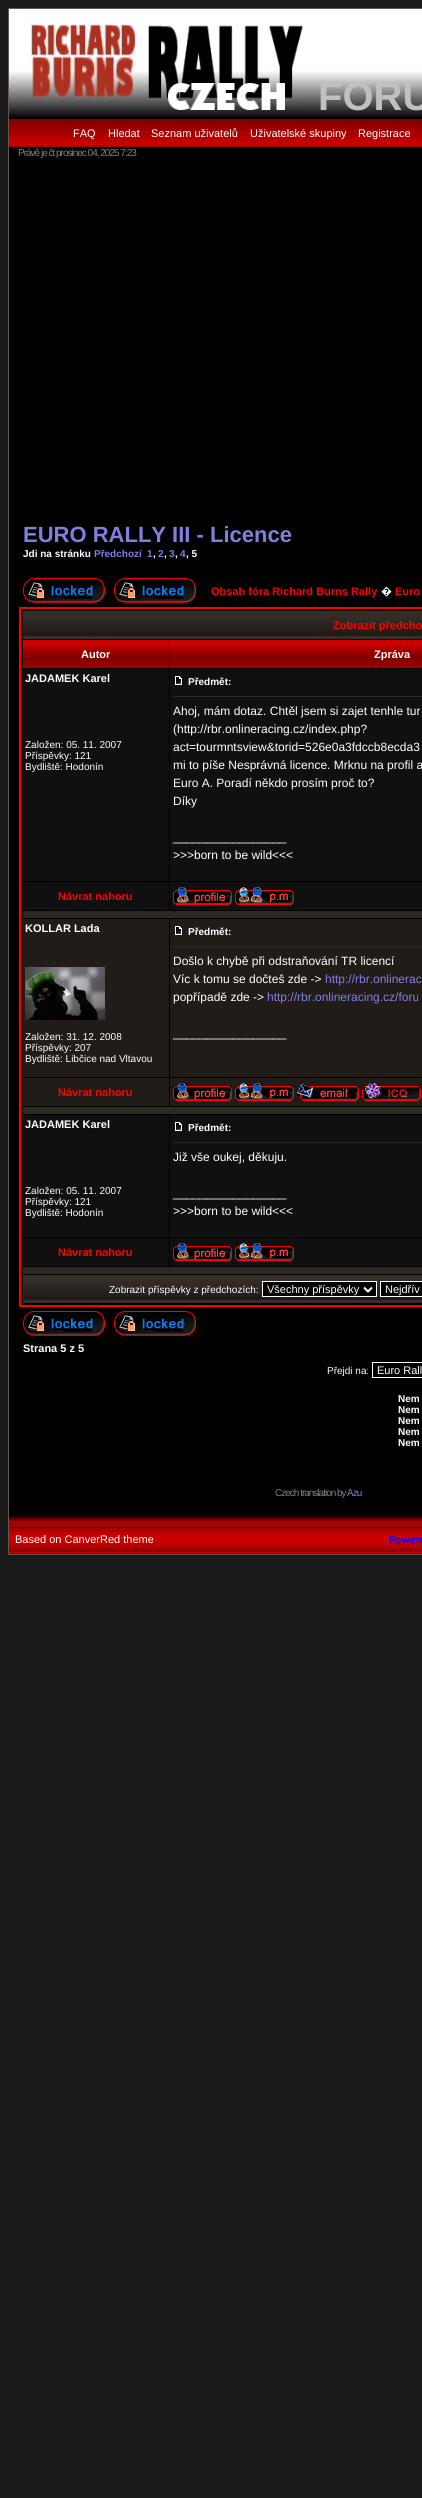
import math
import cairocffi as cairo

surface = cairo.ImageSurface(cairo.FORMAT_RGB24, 422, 2498)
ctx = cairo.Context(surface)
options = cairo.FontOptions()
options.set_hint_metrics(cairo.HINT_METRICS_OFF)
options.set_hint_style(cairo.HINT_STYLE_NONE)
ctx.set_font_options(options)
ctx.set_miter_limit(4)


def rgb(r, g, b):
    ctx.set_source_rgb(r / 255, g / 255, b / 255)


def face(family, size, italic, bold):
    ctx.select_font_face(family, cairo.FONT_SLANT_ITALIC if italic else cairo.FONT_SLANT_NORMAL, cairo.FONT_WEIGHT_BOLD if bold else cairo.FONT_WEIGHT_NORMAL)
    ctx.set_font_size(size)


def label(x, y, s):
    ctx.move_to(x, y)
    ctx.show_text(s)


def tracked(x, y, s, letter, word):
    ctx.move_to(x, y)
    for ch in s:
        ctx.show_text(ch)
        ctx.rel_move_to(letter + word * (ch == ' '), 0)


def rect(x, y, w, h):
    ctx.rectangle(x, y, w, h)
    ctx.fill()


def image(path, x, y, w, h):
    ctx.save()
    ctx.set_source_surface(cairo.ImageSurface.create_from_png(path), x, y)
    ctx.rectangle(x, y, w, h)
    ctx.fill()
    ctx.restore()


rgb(26, 26, 26)
ctx.paint()
rgb(0, 0, 0)
rect(9, 147, 413, 1368)
ctx.rectangle(8.5, 8.5, 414, 1546)
rgb(103, 85, 78)
ctx.set_line_width(1)
ctx.stroke()
image('image0.png', 9, 9, 413, 110)
image('image1.png', 25, 17, 278, 96)
face('Liberation Sans', 40, 0, 1)
rgb(192, 192, 192)
label(318, 110, 'FORU')
image('image2.png', 9, 119, 413, 28)
face('Liberation Sans', 11, 0, 0)
rgb(255, 255, 255)
label(73, 137, 'FAQ')
label(108, 137, 'Hledat')
label(151, 137, 'Seznam uživatelů')
label(250, 137, 'Uživatelské skupiny')
label(358, 137, 'Registrace')
face('Liberation Sans', 10, 0, 0)
rgb(128, 128, 128)
tracked(18, 156, 'Právě je čt prosinec 04, 2025 7:23', -1, 0)
face('Liberation Sans', 22, 0, 1)
rgb(128, 128, 224)
label(23, 542, 'EURO RALLY III - Licence')
face('Liberation Sans', 10, 0, 1)
rgb(255, 255, 255)
label(23, 557, 'Jdi na stránku')
rgb(128, 128, 224)
label(94, 557, 'Předchozí')
label(147, 557, '1')
rgb(255, 255, 255)
label(153, 557, ',')
rgb(128, 128, 224)
label(158, 557, '2')
rgb(255, 255, 255)
label(164, 557, ',')
rgb(128, 128, 224)
label(169, 557, '3')
rgb(255, 255, 255)
label(175, 557, ',')
rgb(128, 128, 224)
label(180, 557, '4')
rgb(255, 255, 255)
label(186, 557, ', 5')
image('image3.png', 23, 578, 82, 25)
image('image3.png', 114, 578, 82, 25)
face('Liberation Sans', 11, 0, 1)
rgb(255, 0, 0)
label(211, 595, 'Obsah fóra Richard Burns Rally')
face('Noto Sans', 11, 0, 1)
rgb(255, 255, 255)
label(381, 595, '�')
face('Liberation Sans', 11, 0, 1)
rgb(255, 0, 0)
label(395, 595, 'Euro')
ctx.rectangle(20, 608, 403, 698)
ctx.set_line_width(2)
ctx.stroke()
image('image4.png', 23, 611, 399, 28)
label(333, 629, 'Zobrazit předcho')
image('image5.png', 23, 640, 146, 28)
rgb(255, 255, 255)
label(81, 658, 'Autor')
image('image6.png', 170, 640, 252, 28)
label(374, 658, 'Zpráva')
rgb(16, 16, 16)
rect(22, 669, 147, 212)
rgb(255, 255, 255)
label(25, 682, 'JADAMEK Karel')
face('Liberation Sans', 10, 0, 0)
label(25, 748, 'Založen: 05. 11. 2007')
label(25, 759, 'Příspěvky: 121')
label(25, 770, 'Bydliště: Hodonín')
rgb(16, 16, 16)
rect(170, 669, 252, 212)
image('image7.png', 175, 676, 7, 9)
face('Liberation Sans', 10, 0, 1)
rgb(255, 255, 255)
label(188, 685, 'Předmět:')
rgb(46, 40, 35)
rect(173, 696, 249, 1)
face('Liberation Sans', 12, 0, 0)
rgb(255, 255, 255)
label(173, 715, 'Ahoj, mám dotaz. Chtěl jsem si zajet tenhle tur')
label(173, 733, '(http://rbr.onlineracing.cz/index.php?')
label(173, 751, 'act=tourmntsview&torid=526e0a3fdccb8ecda3')
label(173, 769, 'mi to píše Nesprávná licence. Mrknu na profil a')
label(173, 787, 'Euro A. Poradí někdo prosím proč to?')
label(173, 805, 'Díky')
label(173, 841, '_________________')
label(173, 859, '>>>born to be wild<<<')
rgb(16, 16, 16)
rect(22, 882, 147, 28)
face('Liberation Sans', 11, 0, 1)
rgb(255, 0, 0)
label(58, 900, 'Návrat nahoru')
rgb(16, 16, 16)
rect(170, 882, 252, 28)
image('image8.png', 173, 887, 59, 18)
image('image9.png', 235, 887, 59, 18)
rgb(46, 40, 35)
rect(23, 911, 399, 7)
rgb(33, 28, 24)
rect(22, 919, 147, 158)
rgb(255, 255, 255)
label(25, 932, 'KOLLAR Lada')
image('image10.png', 25, 967, 80, 53)
face('Liberation Sans', 10, 0, 0)
label(25, 1040, 'Založen: 31. 12. 2008')
label(25, 1051, 'Příspěvky: 207')
label(25, 1062, 'Bydliště: Libčice nad Vltavou')
rgb(33, 28, 24)
rect(170, 919, 252, 158)
image('image11.png', 175, 926, 7, 9)
face('Liberation Sans', 10, 0, 1)
rgb(255, 255, 255)
label(188, 935, 'Předmět:')
rgb(46, 40, 35)
rect(173, 946, 249, 1)
face('Liberation Sans', 12, 0, 0)
rgb(255, 255, 255)
label(173, 965, 'Došlo k chybě při odstraňování TR licencí')
label(173, 983, 'Víc k tomu se dočteš zde ->')
rgb(128, 128, 224)
label(325, 983, 'http://rbr.onlinerac')
rgb(255, 255, 255)
label(173, 1001, 'popřípadě zde ->')
rgb(128, 128, 224)
label(267, 1001, 'http://rbr.onlineracing.cz/foru')
rgb(255, 255, 255)
label(173, 1037, '_________________')
rgb(33, 28, 24)
rect(22, 1078, 147, 28)
face('Liberation Sans', 11, 0, 1)
rgb(255, 0, 0)
label(58, 1096, 'Návrat nahoru')
rgb(33, 28, 24)
rect(170, 1078, 252, 28)
image('image12.png', 173, 1083, 59, 18)
image('image13.png', 235, 1083, 59, 18)
image('image14.png', 297, 1083, 62, 18)
image('image15.png', 362, 1083, 59, 18)
rgb(46, 40, 35)
rect(23, 1107, 399, 7)
rgb(16, 16, 16)
rect(22, 1115, 147, 122)
rgb(255, 255, 255)
label(25, 1128, 'JADAMEK Karel')
face('Liberation Sans', 10, 0, 0)
label(25, 1194, 'Založen: 05. 11. 2007')
label(25, 1205, 'Příspěvky: 121')
label(25, 1216, 'Bydliště: Hodonín')
rgb(16, 16, 16)
rect(170, 1115, 252, 122)
image('image7.png', 175, 1122, 7, 9)
face('Liberation Sans', 10, 0, 1)
rgb(255, 255, 255)
label(188, 1131, 'Předmět:')
rgb(46, 40, 35)
rect(173, 1142, 249, 1)
face('Liberation Sans', 12, 0, 0)
rgb(255, 255, 255)
label(173, 1161, 'Již vše oukej, děkuju.')
label(173, 1197, '_________________')
label(173, 1215, '>>>born to be wild<<<')
rgb(16, 16, 16)
rect(22, 1238, 147, 28)
face('Liberation Sans', 11, 0, 1)
rgb(255, 0, 0)
label(58, 1256, 'Návrat nahoru')
rgb(16, 16, 16)
rect(170, 1238, 252, 28)
image('image8.png', 173, 1243, 59, 18)
image('image9.png', 235, 1243, 59, 18)
rgb(46, 40, 35)
rect(23, 1267, 399, 7)
image('image4.png', 23, 1275, 399, 28)
face('Liberation Sans', 10, 0, 0)
rgb(255, 255, 255)
label(109, 1293, 'Zobrazit příspěvky z předchozích:')
rgb(0, 0, 0)
ctx.rectangle(262.5, 1281.5, 114, 15)
ctx.fill_preserve()
rgb(255, 255, 255)
ctx.set_line_width(1)
ctx.stroke()
ctx.new_path()
ctx.move_to(364, 1287.5)
ctx.line_to(368, 1291.5)
ctx.line_to(372, 1287.5)
ctx.set_line_width(2)
ctx.stroke()
face('Liberation Sans', 11, 0, 0)
label(267, 1293, 'Všechny příspěvky')
rgb(0, 0, 0)
ctx.rectangle(380.5, 1281.5, 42, 15)
ctx.fill_preserve()
rgb(255, 255, 255)
ctx.set_line_width(1)
ctx.stroke()
label(385, 1293, 'Nejdřív')
image('image3.png', 23, 1311, 82, 25)
image('image3.png', 114, 1311, 82, 25)
face('Liberation Sans', 11, 0, 1)
label(23, 1352, 'Strana 5 z 5')
face('Liberation Sans', 10, 0, 0)
label(327, 1374, 'Přejdi na:')
ctx.rectangle(372.5, 1362.5, 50, 15)
ctx.stroke()
face('Liberation Sans', 11, 0, 0)
label(377, 1374, 'Euro Rall')
face('Liberation Sans', 10, 0, 1)
label(398, 1402, 'Nem')
label(398, 1413, 'Nem')
label(398, 1424, 'Nem')
label(398, 1435, 'Nem')
label(398, 1446, 'Nem')
face('Liberation Sans', 10, 0, 0)
rgb(128, 128, 128)
tracked(275, 1496, 'Czech translation by', -1, 0)
rgb(128, 128, 224)
tracked(347, 1496, 'Azu', -1, 0)
image('image16.png', 9, 1515, 413, 9)
image('image17.png', 9, 1524, 233, 30)
face('Liberation Sans', 11, 0, 0)
rgb(255, 255, 255)
label(15, 1543, 'Based on CanverRed theme')
image('image18.png', 242, 1524, 180, 30)
image('image19.png', 389, 1535, 33, 9)
surface.write_to_png('render.png')
